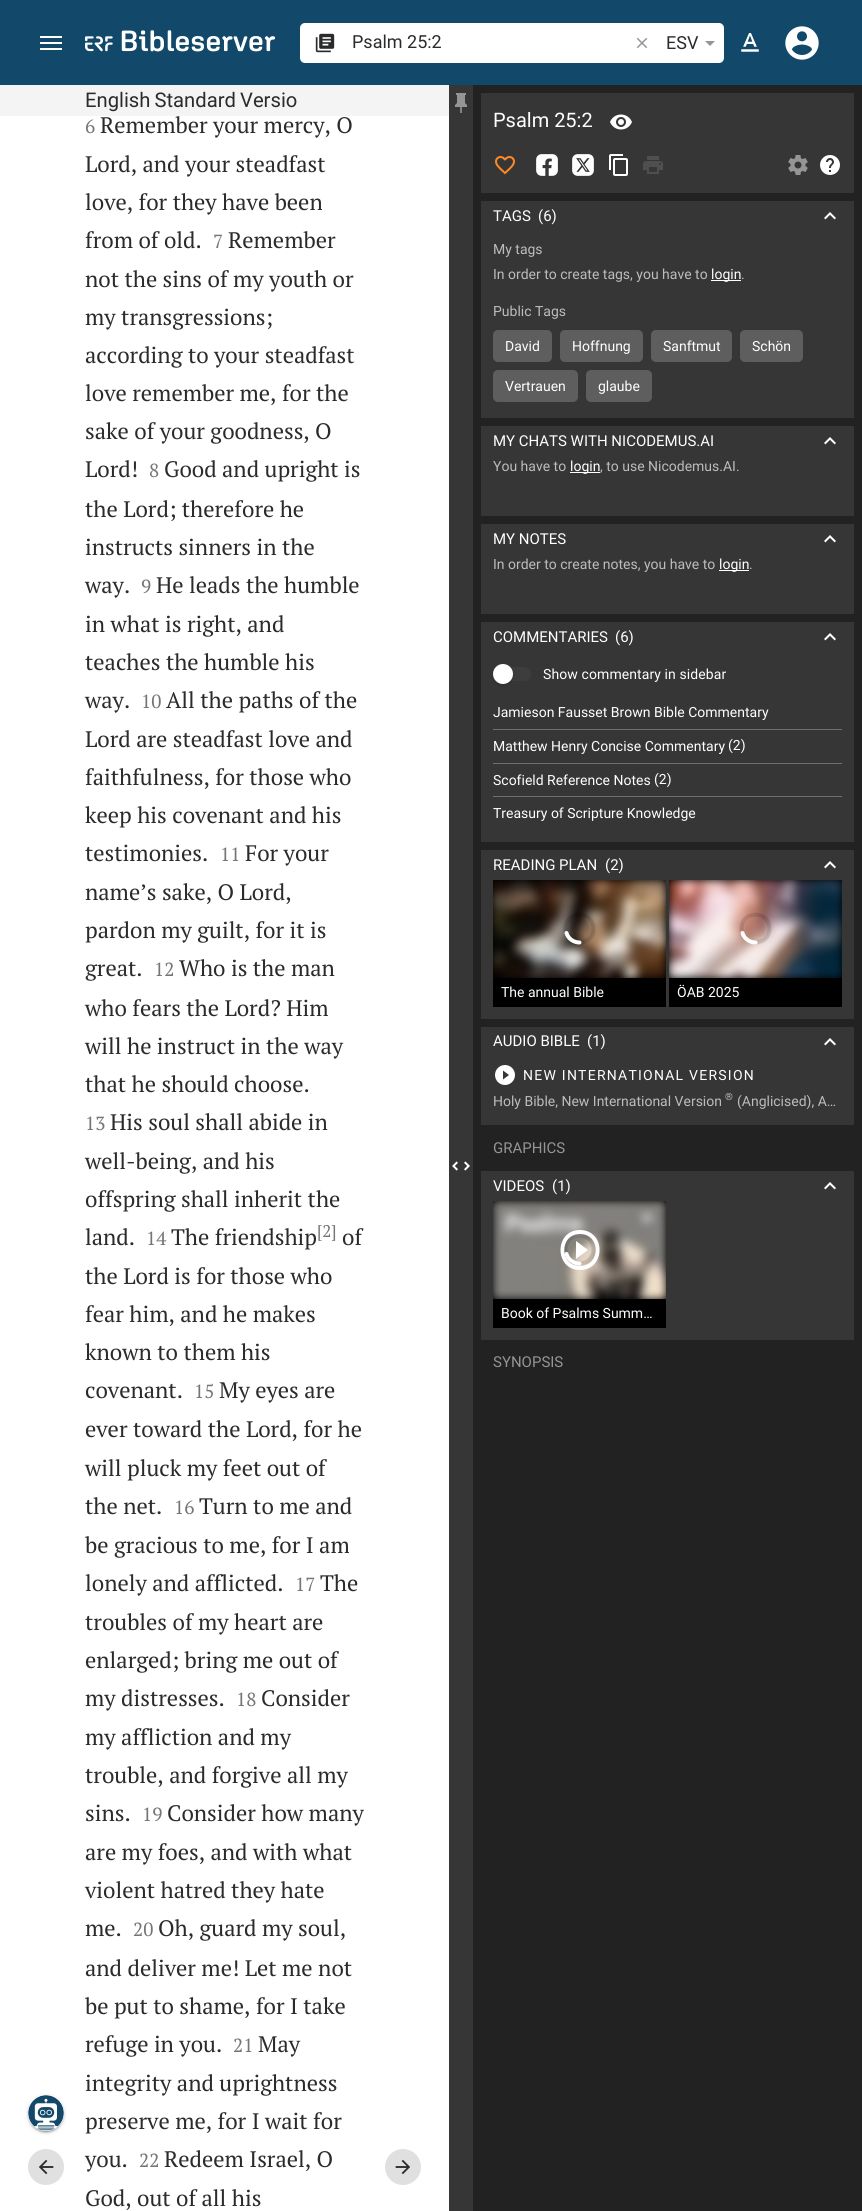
import math
import cairocffi as cairo

surface = cairo.ImageSurface(cairo.FORMAT_RGB24, 862, 2211)
ctx = cairo.Context(surface)
options = cairo.FontOptions()
options.set_hint_metrics(cairo.HINT_METRICS_OFF)
options.set_hint_style(cairo.HINT_STYLE_NONE)
ctx.set_font_options(options)
ctx.set_miter_limit(4)


def rgb(r, g, b):
    ctx.set_source_rgb(r / 255, g / 255, b / 255)


def face(family, size, italic, bold):
    ctx.select_font_face(family, cairo.FONT_SLANT_ITALIC if italic else cairo.FONT_SLANT_NORMAL, cairo.FONT_WEIGHT_BOLD if bold else cairo.FONT_WEIGHT_NORMAL)
    ctx.set_font_size(size)


def label(x, y, s):
    ctx.move_to(x, y)
    ctx.show_text(s)


def tracked(x, y, s, letter, word):
    ctx.move_to(x, y)
    for ch in s:
        ctx.show_text(ch)
        ctx.rel_move_to(letter + word * (ch == ' '), 0)


def rect(x, y, w, h):
    ctx.rectangle(x, y, w, h)
    ctx.fill()


def rrect(x, y, w, h, r):
    ctx.new_sub_path()
    for i, (u, v) in enumerate([(x + w - r, y + h - r), (x + r, y + h - r), (x + r, y + r), (x + w - r, y + r)]):
        ctx.arc(u, v, r, i * math.pi / 2, (i + 1) * math.pi / 2)
    ctx.close_path()


def soft_shadow(x, y, w, h, r, blur, alpha):
    ctx.push_group_with_content(cairo.CONTENT_ALPHA)
    ctx.set_operator(cairo.OPERATOR_SOURCE)
    for i in range(15, -16, -2):
        e = blur * i / 6
        if min(w, h) + 2 * e > 0:
            ctx.set_source_rgba(0, 0, 0, alpha * math.erfc((i - 1) / 8.5) / 2)
            rrect(x - e, y - e, w + 2 * e, h + 2 * e, max(0, min(r + e + blur * .6, min(w, h) / 2 + e)))
            ctx.fill()
    ctx.mask(ctx.pop_group())


def image(path, x, y, w, h):
    ctx.save()
    ctx.set_source_surface(cairo.ImageSurface.create_from_png(path), x, y)
    ctx.rectangle(x, y, w, h)
    ctx.fill()
    ctx.restore()


rgb(255, 255, 255)
ctx.paint()
rgb(18, 73, 106)
rect(0, 0, 862, 85)
rgb(255, 255, 255)
rect(40, 36, 22, 2)
rect(40, 42, 22, 2)
rect(40, 48, 22, 2)
image('image0.png', 85, 30, 190, 22)
rrect(300, 23, 424, 40, 5)
ctx.fill()
image('image1.png', 315, 33, 20, 20)
face('Roboto', 18, 0, 0)
rgb(43, 43, 43)
label(352, 48, 'Psalm 25:2')
image('image2.png', 636, 37, 12, 12)
label(666, 49, 'ESV')
rgb(149, 149, 149)
ctx.new_path()
ctx.move_to(705, 41)
ctx.line_to(710, 46)
ctx.line_to(715, 41)
ctx.close_path()
ctx.fill()
image('image3.png', 741, 33, 18, 19)
image('image4.png', 785, 26, 34, 34)
rgb(0, 0, 0)
soft_shadow(28, 2096, 36, 36, 18, 2.5, 0.12)
soft_shadow(28, 2097, 36, 36, 18, 1, 0.14)
soft_shadow(30, 2100, 32, 32, 16, 0.5, 0.2)
rgb(255, 255, 255)
ctx.arc(46, 2113, 18, 0, 2 * math.pi)
ctx.fill()
image('image5.png', 28, 2095, 36, 36)
rgb(244, 244, 244)
rect(0, 85, 449, 31)
face('Roboto', 20.25, 0, 0)
rgb(43, 43, 43)
tracked(85, 107, 'English Standard Versio', 0, -1)
rgb(224, 224, 224)
ctx.new_path()
ctx.arc(46, 2167, 18, 0, 2 * math.pi)
ctx.fill()
image('image6.png', 39, 2159, 15, 16)
face('PT Serif', 19, 0, 0)
rgb(117, 117, 117)
label(85, 133, '6')
face('PT Serif', 22.4, 0, 0)
rgb(43, 43, 43)
label(100, 133, 'Remember your mercy, O')
label(85, 172, 'Lord, and your steadfast')
label(85, 210, 'love, for they have been')
label(85, 248, 'from of old.')
face('PT Serif', 19, 0, 0)
rgb(117, 117, 117)
label(213, 248, '7')
face('PT Serif', 22.4, 0, 0)
rgb(43, 43, 43)
label(228, 248, 'Remember')
label(85, 287, 'not the sins of my youth or')
label(85, 325, 'my transgressions;')
label(85, 363, 'according to your steadfast')
label(85, 401, 'love remember me, for the')
label(85, 439, 'sake of your goodness, O')
label(85, 477, 'Lord!')
face('PT Serif', 19, 0, 0)
rgb(117, 117, 117)
label(149, 477, '8')
face('PT Serif', 22.4, 0, 0)
rgb(43, 43, 43)
label(164, 477, 'Good and upright is')
label(85, 517, 'the Lord; therefore he')
label(85, 555, 'instructs sinners in the')
label(85, 593, 'way.')
face('PT Serif', 19, 0, 0)
rgb(117, 117, 117)
label(141, 593, '9')
face('PT Serif', 22.4, 0, 0)
rgb(43, 43, 43)
label(156, 593, 'He leads the humble')
label(85, 632, 'in what is right, and')
label(85, 670, 'teaches the humble his')
label(85, 708, 'way.')
face('PT Serif', 19, 0, 0)
rgb(117, 117, 117)
label(141, 708, '10')
face('PT Serif', 22.4, 0, 0)
rgb(43, 43, 43)
label(166, 708, 'All the paths of the')
label(85, 747, 'Lord are steadfast love and')
label(85, 785, 'faithfulness, for those who')
label(85, 823, 'keep his covenant and his')
label(85, 861, 'testimonies.')
face('PT Serif', 19, 0, 0)
rgb(117, 117, 117)
label(220, 861, '11')
face('PT Serif', 22.4, 0, 0)
rgb(43, 43, 43)
label(245, 861, 'For your')
label(85, 900, 'name’s sake, O Lord,')
label(85, 938, 'pardon my guilt, for it is')
label(85, 976, 'great.')
face('PT Serif', 19, 0, 0)
rgb(117, 117, 117)
label(154, 976, '12')
face('PT Serif', 22.4, 0, 0)
rgb(43, 43, 43)
label(179, 976, 'Who is the man')
label(85, 1016, 'who fears the Lord? Him')
label(85, 1054, 'will he instruct in the way')
label(85, 1092, 'that he should choose.')
face('PT Serif', 19, 0, 0)
rgb(117, 117, 117)
label(85, 1130, '13')
face('PT Serif', 22.4, 0, 0)
rgb(43, 43, 43)
label(110, 1130, 'His soul shall abide in')
label(85, 1169, 'well-being, and his')
label(85, 1207, 'offspring shall inherit the')
label(85, 1245, 'land.')
face('PT Serif', 19, 0, 0)
rgb(117, 117, 117)
label(146, 1245, '14')
face('PT Serif', 22.4, 0, 0)
rgb(43, 43, 43)
label(171, 1245, 'The friendship')
face('PT Serif', 17, 0, 0)
rgb(117, 117, 117)
label(317, 1237, '[2]')
face('PT Serif', 22.4, 0, 0)
rgb(43, 43, 43)
label(342, 1245, 'of')
label(85, 1284, 'the Lord is for those who')
label(85, 1322, 'fear him, and he makes')
label(85, 1360, 'known to them his')
label(85, 1398, 'covenant.')
face('PT Serif', 19, 0, 0)
rgb(117, 117, 117)
label(194, 1398, '15')
face('PT Serif', 22.4, 0, 0)
rgb(43, 43, 43)
label(219, 1398, 'My eyes are')
label(85, 1437, 'ever toward the Lord, for he')
label(85, 1476, 'will pluck my feet out of')
label(85, 1514, 'the net.')
face('PT Serif', 19, 0, 0)
rgb(117, 117, 117)
label(174, 1514, '16')
face('PT Serif', 22.4, 0, 0)
rgb(43, 43, 43)
label(199, 1514, 'Turn to me and')
label(85, 1553, 'be gracious to me, for I am')
label(85, 1591, 'lonely and afflicted.')
face('PT Serif', 19, 0, 0)
rgb(117, 117, 117)
label(295, 1591, '17')
face('PT Serif', 22.4, 0, 0)
rgb(43, 43, 43)
label(320, 1591, 'The')
label(85, 1630, 'troubles of my heart are')
label(85, 1668, 'enlarged; bring me out of')
label(85, 1706, 'my distresses.')
face('PT Serif', 19, 0, 0)
rgb(117, 117, 117)
label(236, 1706, '18')
face('PT Serif', 22.4, 0, 0)
rgb(43, 43, 43)
label(261, 1706, 'Consider')
label(85, 1745, 'my affliction and my')
label(85, 1783, 'trouble, and forgive all my')
label(85, 1821, 'sins.')
face('PT Serif', 19, 0, 0)
rgb(117, 117, 117)
label(142, 1821, '19')
face('PT Serif', 22.4, 0, 0)
rgb(43, 43, 43)
label(167, 1821, 'Consider how many')
label(85, 1860, 'are my foes, and with what')
label(85, 1898, 'violent hatred they hate')
label(85, 1936, 'me.')
face('PT Serif', 19, 0, 0)
rgb(117, 117, 117)
label(133, 1936, '20')
face('PT Serif', 22.4, 0, 0)
rgb(43, 43, 43)
label(158, 1936, 'Oh, guard my soul,')
label(85, 1976, 'and deliver me! Let me not')
label(85, 2014, 'be put to shame, for I take')
label(85, 2052, 'refuge in you.')
face('PT Serif', 19, 0, 0)
rgb(117, 117, 117)
label(233, 2052, '21')
face('PT Serif', 22.4, 0, 0)
rgb(43, 43, 43)
label(258, 2052, 'May')
label(85, 2091, 'integrity and uprightness')
label(85, 2129, 'preserve me, for I wait for')
label(85, 2167, 'you.')
face('PT Serif', 19, 0, 0)
rgb(117, 117, 117)
label(139, 2167, '22')
face('PT Serif', 22.4, 0, 0)
rgb(43, 43, 43)
label(164, 2167, 'Redeem Israel, O')
label(85, 2206, 'God, out of all his')
rgb(224, 224, 224)
ctx.new_path()
ctx.arc(403, 2167, 18, 0, 2 * math.pi)
ctx.fill()
image('image7.png', 395, 2159, 15, 16)
rgb(54, 54, 54)
rect(449, 85, 24, 2126)
image('image8.png', 455, 93, 12, 20)
image('image9.png', 452, 1161, 18, 10)
rgb(34, 34, 34)
rect(473, 85, 389, 2126)
rgb(54, 54, 54)
rect(481, 93, 373, 100)
face('Roboto', 20, 0, 0)
rgb(255, 255, 255)
label(493, 127, 'Psalm 25:2')
image('image10.png', 610, 114, 22, 16)
image('image11.png', 495, 156, 20, 19)
image('image12.png', 536, 154, 22, 22)
image('image13.png', 572, 154, 22, 22)
image('image14.png', 609, 154, 19, 22)
image('image15.png', 643, 156, 20, 18)
image('image16.png', 788, 155, 20, 20)
image('image17.png', 820, 155, 20, 20)
rgb(54, 54, 54)
rect(481, 201, 373, 217)
face('Roboto', 15, 0, 0)
rgb(255, 255, 255)
label(493, 221, 'TAGS')
label(538, 221, '(6)')
image('image18.png', 824, 212, 12, 8)
face('Roboto', 14, 0, 0)
rgb(189, 189, 189)
label(493, 254, 'My tags')
label(493, 279, 'In order to create tags, you have to')
rgb(255, 255, 255)
rect(711, 280, 30, 1)
label(711, 279, 'login')
rgb(189, 189, 189)
label(741, 279, '.')
label(493, 316, 'Public Tags')
rgb(94, 94, 94)
rrect(493, 330, 59, 32, 5)
ctx.fill()
rgb(255, 255, 255)
label(505, 351, 'David')
rgb(94, 94, 94)
rrect(560, 330, 83, 32, 5)
ctx.fill()
rgb(255, 255, 255)
label(572, 351, 'Hoffnung')
rgb(94, 94, 94)
rrect(651, 330, 81, 32, 5)
ctx.fill()
rgb(255, 255, 255)
label(663, 351, 'Sanftmut')
rgb(94, 94, 94)
rrect(740, 330, 63, 32, 5)
ctx.fill()
rgb(255, 255, 255)
label(752, 351, 'Schön')
rgb(94, 94, 94)
rrect(493, 370, 85, 32, 5)
ctx.fill()
rgb(255, 255, 255)
label(505, 391, 'Vertrauen')
rgb(94, 94, 94)
rrect(586, 370, 66, 32, 5)
ctx.fill()
rgb(255, 255, 255)
label(598, 391, 'glaube')
rgb(54, 54, 54)
rect(481, 426, 373, 90)
face('Roboto', 15, 0, 0)
rgb(255, 255, 255)
label(493, 446, 'MY CHATS WITH NICODEMUS.AI')
image('image18.png', 824, 437, 12, 8)
face('Roboto', 14, 0, 0)
rgb(189, 189, 189)
label(493, 471, 'You have to')
rgb(255, 255, 255)
rect(570, 472, 30, 1)
label(570, 471, 'login')
rgb(189, 189, 189)
label(600, 471, ', to use Nicodemus.AI.')
rgb(54, 54, 54)
rect(481, 524, 373, 90)
face('Roboto', 15, 0, 0)
rgb(255, 255, 255)
label(493, 544, 'MY NOTES')
image('image18.png', 824, 535, 12, 8)
face('Roboto', 14, 0, 0)
rgb(189, 189, 189)
label(493, 569, 'In order to create notes, you have to')
rgb(255, 255, 255)
rect(719, 570, 30, 1)
label(719, 569, 'login')
rgb(189, 189, 189)
label(749, 569, '.')
rgb(54, 54, 54)
rect(481, 622, 373, 220)
face('Roboto', 15, 0, 0)
rgb(255, 255, 255)
label(493, 642, 'COMMENTARIES')
label(615, 642, '(6)')
image('image18.png', 824, 633, 12, 8)
rgb(61, 61, 61)
rrect(495, 667, 36, 14, 7)
ctx.fill()
rgb(0, 0, 0)
soft_shadow(494, 667, 18, 18, 9, 2, 0.2)
rgb(255, 255, 255)
ctx.arc(503, 674, 10, 0, 2 * math.pi)
ctx.fill()
face('Roboto', 14, 0, 0)
tracked(543, 679, 'Show commentary in sidebar', 0.1, 0)
label(493, 717, 'Jamieson Fausset Brown Bible Commentary')
rgb(111, 111, 111)
rect(493, 729, 349, 1)
rgb(255, 255, 255)
label(493, 751, 'Matthew Henry Concise Commentary')
label(728, 750, '(2)')
rgb(111, 111, 111)
rect(493, 763, 349, 1)
rgb(255, 255, 255)
label(493, 785, 'Scofield Reference Notes')
label(654, 784, '(2)')
rgb(111, 111, 111)
rect(493, 796, 349, 1)
rgb(255, 255, 255)
label(493, 818, 'Treasury of Scripture Knowledge')
rgb(54, 54, 54)
rect(481, 850, 373, 169)
face('Roboto', 15, 0, 0)
rgb(255, 255, 255)
label(493, 870, 'READING PLAN')
label(605, 870, '(2)')
image('image18.png', 824, 861, 12, 8)
rgb(0, 0, 0)
rect(493, 880, 173, 127)
image('image19.png', 493, 880, 173, 98)
ctx.new_path()
ctx.move_to(565.5, 928.5)
ctx.curve_to(565.5, 910, 593.5, 910, 593.5, 928.5)
ctx.curve_to(593.5, 947, 565.5, 947, 565.5, 928.5)
ctx.set_source_rgba(0, 0, 0, 0.12)
ctx.set_line_width(4)
ctx.stroke()
ctx.new_path()
ctx.move_to(579.5, 942.5)
ctx.curve_to(573.5, 942.5, 568, 938.5, 566.5, 933)
rgb(255, 255, 255)
ctx.set_line_cap(cairo.LINE_CAP_ROUND)
ctx.stroke()
face('Roboto', 14, 0, 0)
label(501, 997, 'The annual Bible')
rgb(0, 0, 0)
rect(669, 880, 173, 127)
image('image20.png', 669, 880, 173, 98)
ctx.new_path()
ctx.move_to(741.5, 928.5)
ctx.curve_to(741.5, 910, 769.5, 910, 769.5, 928.5)
ctx.curve_to(769.5, 947, 741.5, 947, 741.5, 928.5)
ctx.set_source_rgba(0, 0, 0, 0.12)
ctx.set_line_cap(cairo.LINE_CAP_BUTT)
ctx.stroke()
ctx.new_path()
ctx.move_to(755.5, 942.5)
ctx.curve_to(749.5, 942.5, 744, 938.5, 742.5, 933)
rgb(255, 255, 255)
ctx.set_line_cap(cairo.LINE_CAP_ROUND)
ctx.stroke()
label(677, 997, 'ÖAB 2025')
rgb(54, 54, 54)
rect(481, 1027, 373, 98)
face('Roboto', 15, 0, 0)
rgb(255, 255, 255)
label(493, 1046, 'AUDIO BIBLE')
label(587, 1046, '(1)')
image('image18.png', 824, 1038, 12, 8)
image('image21.png', 495, 1065, 20, 20)
face('Roboto', 14, 0, 0)
tracked(523, 1080, 'NEW INTERNATIONAL VERSION', 1.25, 0)
rgb(189, 189, 189)
label(493, 1106, 'Holy Bible, New International Version')
ctx.save()
ctx.rectangle(481, 1093, 373, 16)
ctx.clip()
face('Roboto', 10, 0, 0)
label(725, 1100, '®')
ctx.restore()
label(737, 1106, '(Anglicised), A…')
face('Roboto', 15, 0, 0)
rgb(149, 149, 149)
label(493, 1153, 'GRAPHICS')
rgb(54, 54, 54)
rect(481, 1171, 373, 169)
rgb(255, 255, 255)
label(493, 1191, 'VIDEOS')
label(552, 1191, '(1)')
image('image18.png', 824, 1182, 12, 8)
rgb(0, 0, 0)
rect(493, 1201, 173, 127)
image('image22.png', 493, 1201, 173, 98)
ctx.new_path()
ctx.move_to(565.5, 1249.5)
ctx.curve_to(565.5, 1231, 593.5, 1231, 593.5, 1249.5)
ctx.curve_to(593.5, 1268, 565.5, 1268, 565.5, 1249.5)
ctx.set_source_rgba(0, 0, 0, 0.12)
ctx.set_line_cap(cairo.LINE_CAP_BUTT)
ctx.stroke()
ctx.new_path()
ctx.move_to(579.5, 1263.5)
ctx.curve_to(573.5, 1263.5, 568, 1259.5, 566.5, 1254)
rgb(255, 255, 255)
ctx.set_line_cap(cairo.LINE_CAP_ROUND)
ctx.stroke()
ctx.new_path()
ctx.move_to(580, 1266)
ctx.curve_to(559, 1266, 559, 1234, 580, 1234)
ctx.curve_to(601, 1234, 601, 1266, 580, 1266)
ctx.move_to(580, 1230)
ctx.curve_to(554, 1230, 554, 1270, 580, 1270)
ctx.curve_to(606, 1270, 606, 1230, 580, 1230)
ctx.move_to(576, 1259)
ctx.line_to(588, 1250)
ctx.line_to(576, 1241)
ctx.close_path()
ctx.fill()
face('Roboto', 14, 0, 0)
label(501, 1318, 'Book of Psalms Summ…')
face('Roboto', 15, 0, 0)
rgb(149, 149, 149)
label(493, 1367, 'SYNOPSIS')
surface.write_to_png('render.png')
